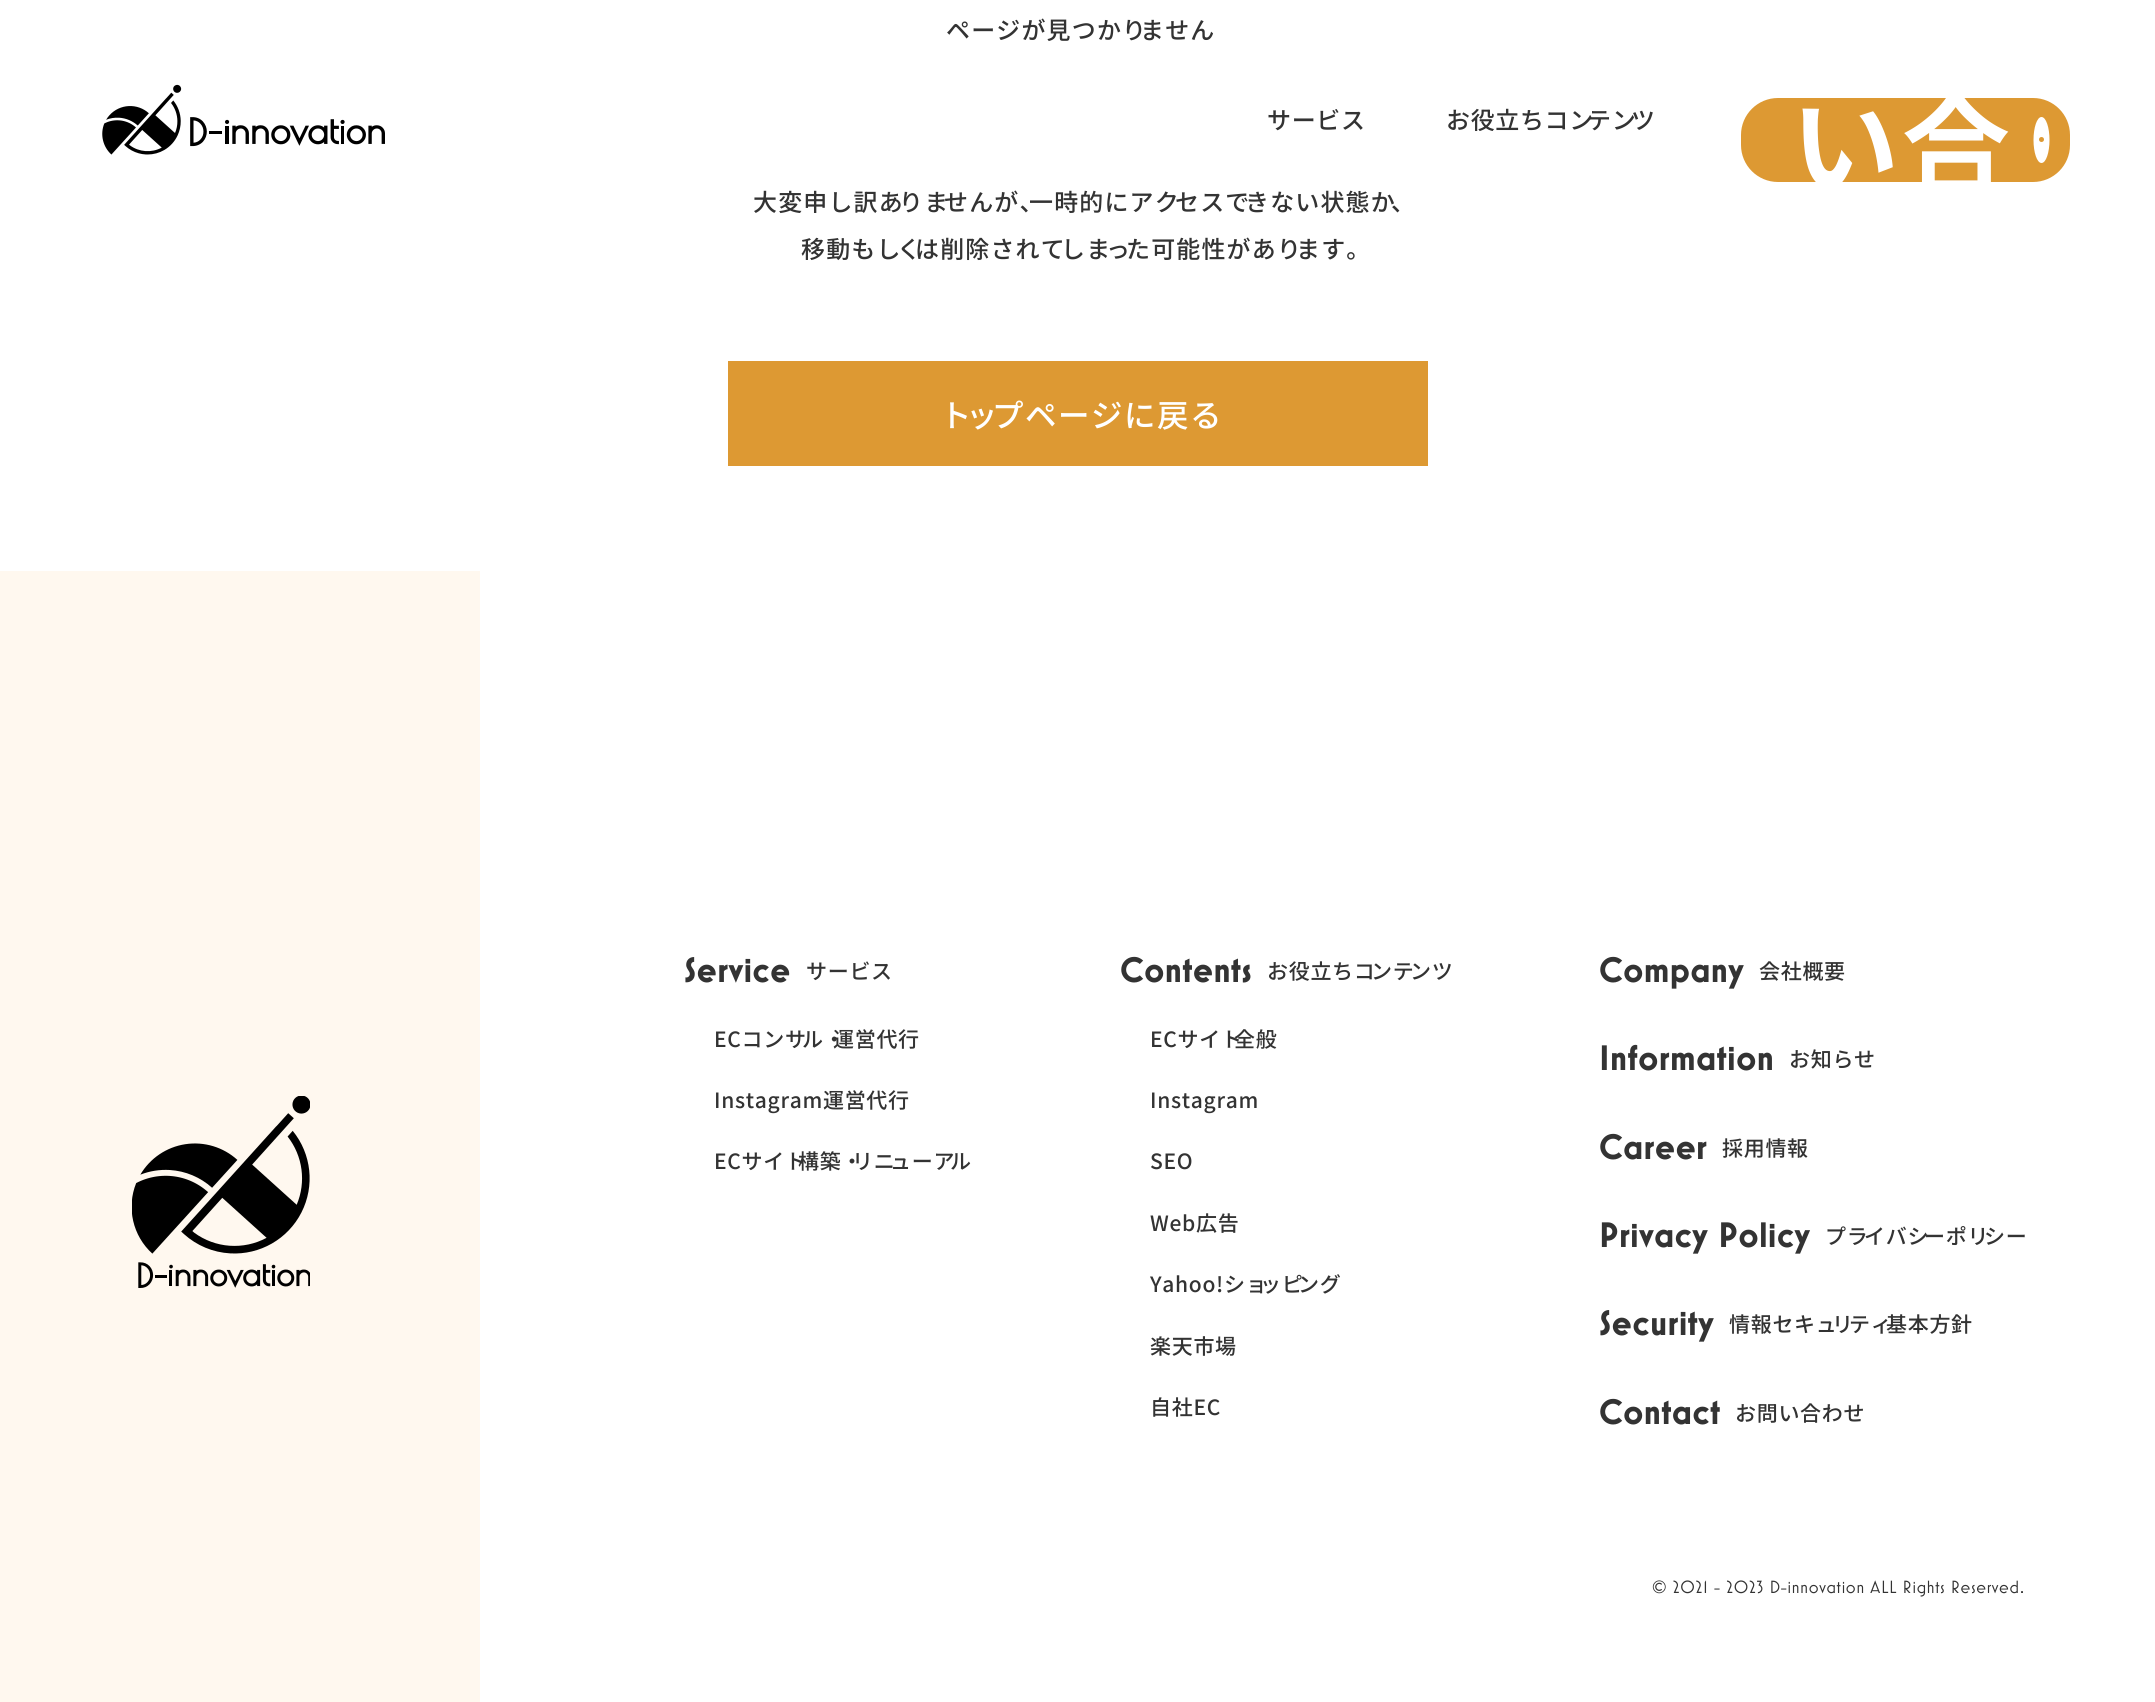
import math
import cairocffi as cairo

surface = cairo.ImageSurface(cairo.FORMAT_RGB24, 2155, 1702)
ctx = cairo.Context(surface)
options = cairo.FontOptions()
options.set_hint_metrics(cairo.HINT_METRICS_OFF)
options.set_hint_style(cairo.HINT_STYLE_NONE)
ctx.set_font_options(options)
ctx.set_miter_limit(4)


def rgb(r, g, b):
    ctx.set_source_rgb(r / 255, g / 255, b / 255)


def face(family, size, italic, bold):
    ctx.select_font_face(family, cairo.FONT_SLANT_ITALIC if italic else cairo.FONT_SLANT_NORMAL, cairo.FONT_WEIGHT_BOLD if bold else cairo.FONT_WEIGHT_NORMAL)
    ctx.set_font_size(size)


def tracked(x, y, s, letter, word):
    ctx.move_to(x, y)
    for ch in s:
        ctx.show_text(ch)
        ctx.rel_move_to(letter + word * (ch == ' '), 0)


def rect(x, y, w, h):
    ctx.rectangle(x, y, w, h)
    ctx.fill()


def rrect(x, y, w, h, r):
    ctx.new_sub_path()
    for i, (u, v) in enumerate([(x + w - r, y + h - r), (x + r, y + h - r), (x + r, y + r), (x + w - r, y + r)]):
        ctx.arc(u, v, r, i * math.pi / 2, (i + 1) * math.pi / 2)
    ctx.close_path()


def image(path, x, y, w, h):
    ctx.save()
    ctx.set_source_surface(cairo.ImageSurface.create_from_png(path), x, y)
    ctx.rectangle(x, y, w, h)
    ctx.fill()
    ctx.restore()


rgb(255, 255, 255)
ctx.paint()
face('Noto Sans JP Medium', 23.95, 0, 0)
rgb(51, 51, 51)
tracked(946, 39, 'ページが見つかり', 1.2, 0)
tracked(1140, 39, 'ません', 1.2, 0)
tracked(753, 211, '大変申し訳あ', 1.2, 0)
tracked(899, 211, 'りま', 1.2, 0)
tracked(944, 211, 'せんが、', 1.2, 0)
tracked(1029, 211, '一時的にアク', 1.2, 0)
tracked(1175, 211, 'セスで', 1.2, 0)
tracked(1245, 211, 'きない状態か', 1.2, 0)
tracked(1391, 211, '、', 1.2, 0)
tracked(801, 258, '移動もし', 1.2, 0)
tracked(897, 258, 'く', 1.2, 0)
tracked(915, 258, 'は削除されて', 1.2, 0)
tracked(1061, 258, 'しま', 1.2, 0)
tracked(1106, 258, 'っ', 1.2, 0)
tracked(1126, 258, 'た可能性があり', 1.2, 0)
tracked(1296, 258, 'ます。', 1.2, 0)
rgb(221, 153, 51)
rect(728, 361, 700, 105)
face('Noto Sans JP Medium', 31.5, 0, 0)
rgb(255, 255, 255)
tracked(940, 427, 'ト', 1.5, 0)
tracked(966, 427, 'ッ', 1.5, 0)
tracked(992, 427, 'プページに戻る', 1.5, 0)
image('image0.png', 102, 84, 283, 71)
face('Noto Sans JP Medium', 23.95, 0, 0)
rgb(51, 51, 51)
tracked(1267, 129, 'サービス', 0.7, 0)
tracked(1446, 129, 'お役立ちコン', 0.7, 0)
tracked(1587, 129, 'テン', 0.7, 0)
tracked(1631, 129, 'ツ', 0.7, 0)
rgb(221, 153, 51)
rrect(1743.5, 100.5, 324, 79, 34.5)
ctx.fill_preserve()
ctx.set_line_width(5)
ctx.stroke()
face('Noto Sans JP', 108, 0, 1)
rgb(255, 255, 255)
tracked(1791, 186, 'い合', 3, 0)
ctx.new_path()
ctx.move_to(2041.5, 117)
ctx.curve_to(2046, 117, 2049.5, 127.5, 2049.5, 140)
ctx.curve_to(2049.5, 152.5, 2046, 163, 2041.5, 163)
ctx.curve_to(2037, 163, 2033.5, 152.5, 2033.5, 140)
ctx.curve_to(2033.5, 127.5, 2037, 117, 2041.5, 117)
ctx.close_path()
ctx.fill()
rgb(221, 153, 51)
ctx.arc(2041.5, 139.5, 2.5, 0, 2 * math.pi)
ctx.fill()
rgb(255, 248, 239)
rect(0, 571, 480, 1131)
image('image1.png', 132, 1096, 178, 192)
face('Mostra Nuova', 36, 0, 1)
rgb(51, 51, 51)
tracked(684, 982, 'Service', 0.7, 0)
face('Noto Sans JP Medium', 21, 0, 0)
tracked(806, 979, 'サービス', 0.7, 0)
tracked(714, 1047, 'ECコンサ', 0.7, 0)
tracked(802, 1047, 'ル・', 0.7, 0)
tracked(833, 1047, '運営代行', 0.7, 0)
tracked(714, 1108, 'Instagram運営代行', 0.7, 0)
tracked(714, 1169, 'ECサイト', 0.7, 0)
tracked(798, 1169, '構築・', 0.7, 0)
tracked(852, 1169, 'リニ', 0.7, 0)
tracked(890, 1169, 'ューア', 0.7, 0)
tracked(950, 1169, 'ル', 0.7, 0)
face('Mostra Nuova', 36, 0, 1)
tracked(1120, 982, 'Contents', 0.7, 0)
face('Noto Sans JP Medium', 21, 0, 0)
tracked(1267, 979, 'お役立ちコ', 0.7, 0)
tracked(1371, 979, 'ンテ', 0.7, 0)
tracked(1410, 979, 'ンツ', 0.7, 0)
tracked(1150, 1047, 'ECサイト', 0.7, 0)
tracked(1234, 1047, '全般', 0.7, 0)
tracked(1150, 1108, 'Instagram', 0.7, 0)
tracked(1150, 1169, 'SEO', 0.7, 0)
tracked(1150, 1231, 'Web広告', 0.7, 0)
tracked(1150, 1292, 'Yahoo!ショ', 0.7, 0)
tracked(1260, 1292, 'ッピ', 0.7, 0)
tracked(1298, 1292, 'ング', 0.7, 0)
tracked(1150, 1354, '楽天市場', 0.7, 0)
tracked(1150, 1415, '自社EC', 0.7, 0)
face('Mostra Nuova', 36, 0, 1)
tracked(1599, 982, 'Company', 0.7, 0)
face('Noto Sans JP Medium', 21, 0, 0)
tracked(1759, 979, '会社概要', 0.7, 0)
face('Mostra Nuova', 36, 0, 1)
tracked(1599, 1070, 'Information', 0.7, 0)
face('Noto Sans JP Medium', 21, 0, 0)
tracked(1789, 1067, 'お知らせ', 0.7, 0)
face('Mostra Nuova', 36, 0, 1)
tracked(1599, 1159, 'Career', 0.7, 0)
face('Noto Sans JP Medium', 21, 0, 0)
tracked(1722, 1156, '採用情報', 0.7, 0)
face('Mostra Nuova', 36, 0, 1)
tracked(1599, 1247, 'Privacy Policy', 0.7, 0)
face('Noto Sans JP Medium', 21, 0, 0)
tracked(1825, 1244, 'プラ', 0.7, 0)
tracked(1864, 1244, 'イバシ', 0.7, 0)
tracked(1924, 1244, 'ーポリ', 0.7, 0)
tracked(1984, 1244, 'シー', 0.7, 0)
face('Mostra Nuova', 36, 0, 1)
tracked(1599, 1335, 'Security', 0.7, 0)
face('Noto Sans JP Medium', 21, 0, 0)
tracked(1729, 1332, '情報セキュ', 0.7, 0)
tracked(1832, 1332, 'リ', 0.7, 0)
tracked(1849, 1332, 'ティ', 0.7, 0)
tracked(1886, 1332, '基本方針', 0.7, 0)
face('Mostra Nuova', 36, 0, 1)
tracked(1599, 1424, 'Contact', 0.7, 0)
face('Noto Sans JP Medium', 21, 0, 0)
tracked(1735, 1421, 'お問い合わせ', 0.7, 0)
face('Mostra Nuova Light', 18, 0, 0)
tracked(1652, 1593, '© 2021 - 2023 D-innovation ALL Rights Reserved.', 0.7, 0)
surface.write_to_png('render.png')
